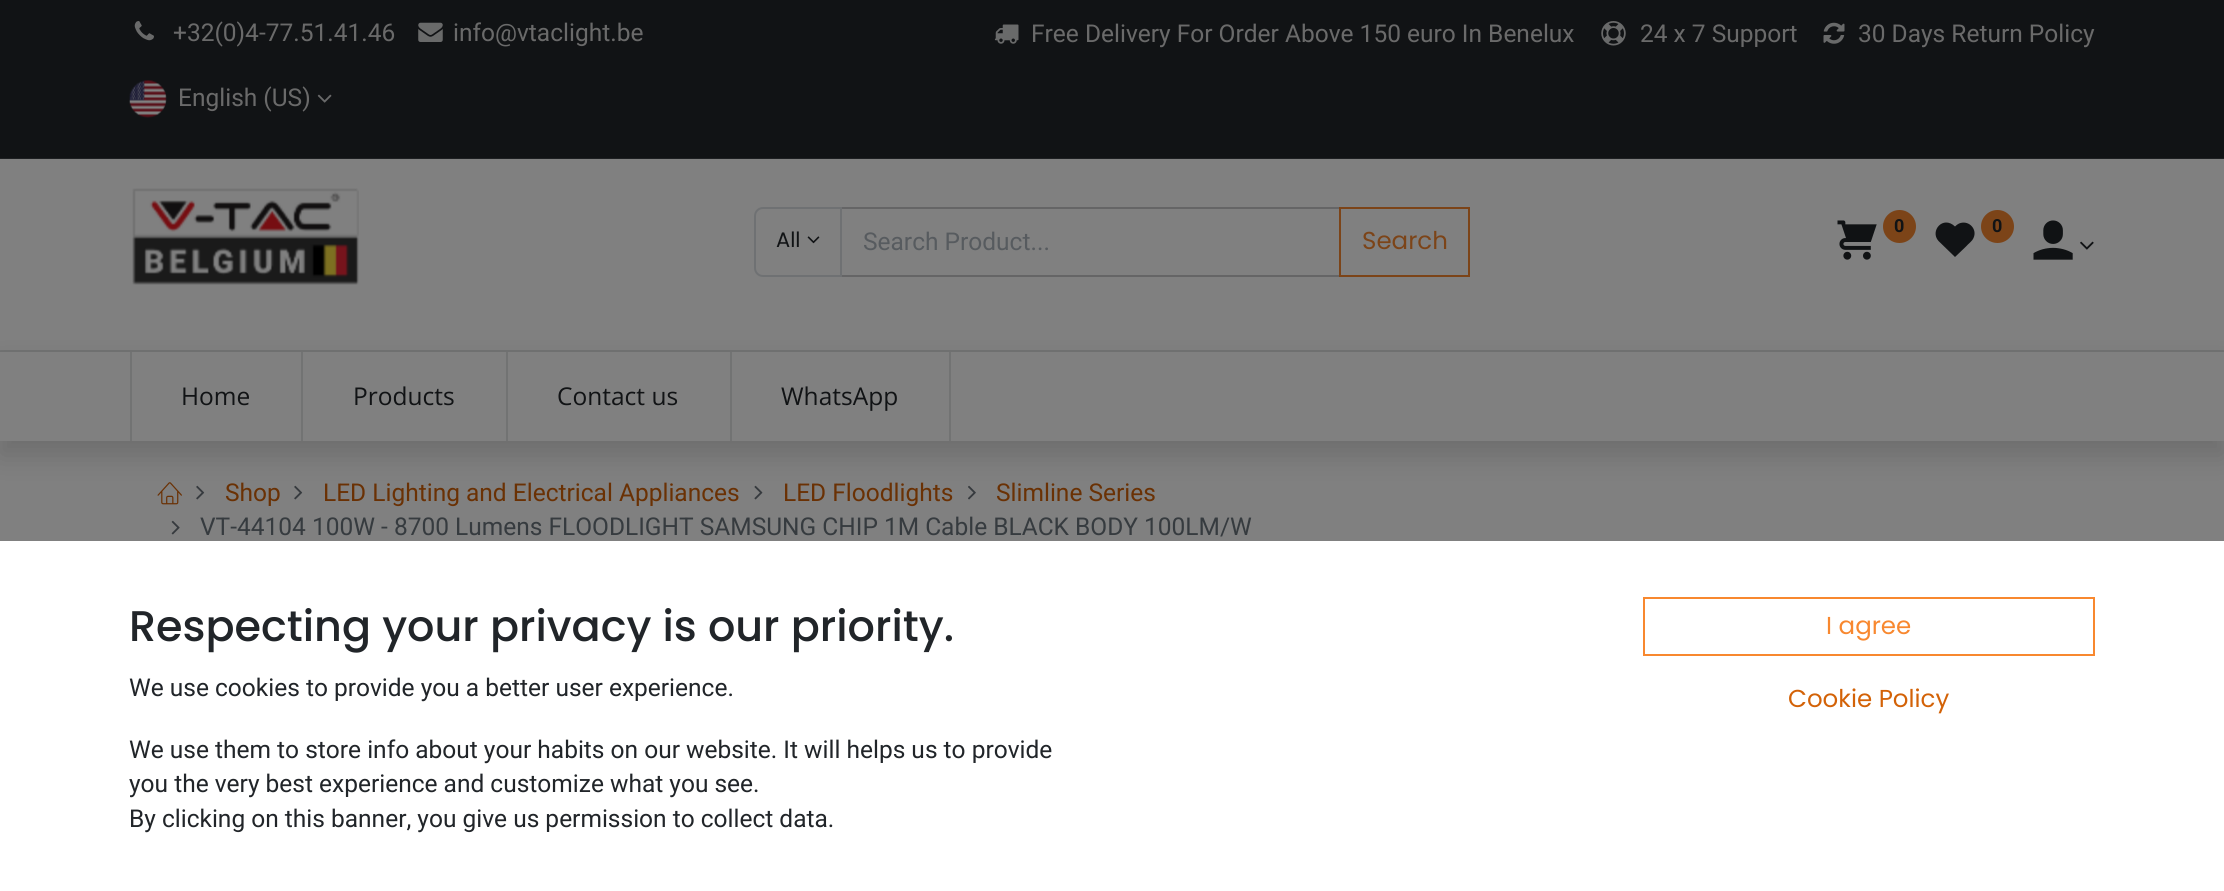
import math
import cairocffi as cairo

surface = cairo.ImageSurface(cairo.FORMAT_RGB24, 2224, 891)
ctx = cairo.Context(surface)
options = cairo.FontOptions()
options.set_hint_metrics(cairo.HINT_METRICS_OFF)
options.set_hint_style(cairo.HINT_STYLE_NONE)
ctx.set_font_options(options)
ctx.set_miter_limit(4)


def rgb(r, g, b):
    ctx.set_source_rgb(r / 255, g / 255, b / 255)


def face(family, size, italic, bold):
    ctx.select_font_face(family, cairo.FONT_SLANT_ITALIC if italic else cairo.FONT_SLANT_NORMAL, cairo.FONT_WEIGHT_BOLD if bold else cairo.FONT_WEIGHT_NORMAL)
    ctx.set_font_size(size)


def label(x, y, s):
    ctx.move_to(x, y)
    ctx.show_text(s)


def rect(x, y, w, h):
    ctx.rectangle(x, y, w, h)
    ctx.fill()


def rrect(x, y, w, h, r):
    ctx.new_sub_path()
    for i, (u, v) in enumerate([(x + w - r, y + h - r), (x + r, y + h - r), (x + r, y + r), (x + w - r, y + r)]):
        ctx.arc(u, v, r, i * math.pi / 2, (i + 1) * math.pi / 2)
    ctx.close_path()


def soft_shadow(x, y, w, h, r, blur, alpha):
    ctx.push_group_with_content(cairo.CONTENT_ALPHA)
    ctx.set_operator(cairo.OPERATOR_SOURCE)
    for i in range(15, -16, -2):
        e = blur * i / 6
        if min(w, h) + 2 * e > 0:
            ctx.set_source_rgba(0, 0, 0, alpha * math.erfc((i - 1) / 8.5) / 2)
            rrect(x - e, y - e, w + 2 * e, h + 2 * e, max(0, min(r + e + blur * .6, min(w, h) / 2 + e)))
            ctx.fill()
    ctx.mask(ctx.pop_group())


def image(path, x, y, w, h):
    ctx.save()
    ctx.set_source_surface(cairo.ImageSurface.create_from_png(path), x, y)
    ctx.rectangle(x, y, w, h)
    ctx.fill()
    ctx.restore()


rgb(128, 128, 128)
ctx.paint()
rgb(17, 19, 21)
rect(0, 0, 2224, 158)
rgb(30, 32, 34)
rect(0, 158, 2224, 1)
image('image0.png', 134, 21, 20, 20)
face('Roboto', 24.5, 0, 0)
rgb(106, 106, 106)
label(173, 41, '+32(0)4-77.51.41.46')
image('image1.png', 418, 22, 25, 20)
label(453, 41, 'info@vtaclight.be')
image('image2.png', 994, 24, 25, 20)
label(1031, 42, 'Free Delivery For Order Above 150 euro In Benelux')
image('image3.png', 1601, 21, 25, 25)
label(1640, 42, '24 x 7 Support')
image('image4.png', 1823, 22, 22, 22)
label(1858, 42, '30 Days Return Policy')
image('image5.png', 129, 80, 38, 38)
label(178, 106, 'English (US)')
image('image6.png', 317, 94, 15, 9)
rgb(114, 115, 115)
rect(0, 350, 2224, 2)
image('image7.png', 132, 188, 227, 97)
image('image8.png', 1837, 220, 40, 40)
rgb(124, 68, 24)
ctx.arc(1899.5, 226.5, 16.5, 0, 2 * math.pi)
ctx.fill()
face('Roboto', 18, 0, 1)
rgb(17, 19, 21)
label(1894, 232, '0')
ctx.new_path()
ctx.move_to(1955, 226.5)
ctx.curve_to(1943, 215, 1929.5, 231, 1938.5, 241)
ctx.line_to(1955, 257)
ctx.line_to(1966, 246.5)
ctx.curve_to(1968.5, 243.5, 1972, 241.5, 1973.5, 238)
ctx.curve_to(1977.5, 229.5, 1969.5, 220.5, 1960.5, 223)
ctx.curve_to(1958.5, 223.5, 1956.5, 225, 1955, 226.5)
ctx.close_path()
ctx.fill()
rgb(124, 68, 24)
ctx.arc(1997.5, 226.5, 16.5, 0, 2 * math.pi)
ctx.fill()
rgb(17, 19, 21)
label(1992, 232, '0')
image('image9.png', 2033, 220, 40, 40)
image('image10.png', 2080, 241, 14, 9)
ctx.rectangle(841, 208, 499, 68)
rgb(101, 101, 102)
ctx.stroke()
ctx.new_path()
ctx.move_to(763, 208)
ctx.line_to(841, 208)
ctx.line_to(841, 276)
ctx.line_to(763, 276)
ctx.curve_to(758.5, 276, 755, 272.5, 755, 268)
ctx.line_to(755, 216)
ctx.curve_to(755, 211.5, 758.5, 208, 763, 208)
ctx.close_path()
rgb(111, 113, 115)
ctx.stroke()
face('Poppins', 21, 0, 0)
rgb(17, 19, 21)
label(776, 247, 'All')
image('image11.png', 807, 236, 13, 8)
face('Roboto', 24.5, 0, 0)
rgb(87, 91, 95)
label(863, 250, 'Search Product...')
ctx.rectangle(1340, 208, 129, 68)
rgb(124, 68, 24)
ctx.stroke()
face('Poppins', 24.5, 0, 0)
label(1362, 249, 'Search')
image('image12.png', 157, 482, 25, 23)
image('image13.png', 196, 485, 9, 15)
image('image13.png', 294, 485, 9, 15)
image('image14.png', 754, 485, 9, 15)
image('image15.png', 968, 485, 8, 15)
ctx.save()
ctx.set_fill_rule(cairo.FILL_RULE_EVEN_ODD)
ctx.new_path()
ctx.move_to(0, 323)
ctx.line_to(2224, 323)
ctx.line_to(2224, 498)
ctx.line_to(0, 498)
ctx.close_path()
ctx.move_to(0, 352)
ctx.line_to(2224, 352)
ctx.line_to(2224, 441)
ctx.line_to(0, 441)
ctx.close_path()
ctx.clip()
rgb(0, 0, 0)
soft_shadow(0, 366, 2224, 89, 0, 14, 0.15)
ctx.restore()
rgb(114, 115, 115)
rect(130, 352, 2, 89)
face('Open Sans', 24.5, 0, 0)
rgb(17, 19, 21)
label(181, 405, 'Home')
rgb(114, 115, 115)
rect(301, 352, 2, 89)
rgb(17, 19, 21)
label(353, 405, 'Products')
rgb(114, 115, 115)
rect(506, 352, 2, 89)
rgb(17, 19, 21)
label(557, 405, 'Contact us')
rgb(114, 115, 115)
rect(949, 352, 2, 89)
rect(730, 352, 2, 89)
rgb(17, 19, 21)
label(781, 405, 'WhatsApp')
face('Roboto', 24.5, 0, 0)
rgb(106, 49, 4)
label(225, 501, 'Shop')
label(323, 501, 'LED Lighting and Electrical Appliances')
label(783, 501, 'LED Floodlights')
label(996, 501, 'Slimline Series')
image('image16.png', 171, 520, 9, 15)
rgb(54, 59, 63)
label(200, 535, 'VT-44104 100W - 8700 Lumens FLOODLIGHT SAMSUNG CHIP 1M Cable BLACK BODY 100LM/W')
rgb(255, 255, 255)
rect(0, 541, 2224, 350)
face('Poppins Medium', 42.9, 0, 0)
rgb(33, 37, 41)
label(129, 641, 'Respecting your privacy is our priority.')
face('Roboto', 24.5, 0, 0)
label(129, 696, 'We use cookies to provide you a better user experience.')
label(129, 758, 'We use them to store info about your habits on our website. It will helps us to provide')
label(129, 792, 'you the very best experience and customize what you see.')
label(129, 827, 'By clicking on this banner, you give us permission to collect data.')
ctx.rectangle(1644, 598, 450, 57)
rgb(248, 136, 47)
ctx.stroke()
face('Poppins', 24.5, 0, 0)
label(1826, 634, 'I agree')
rgb(211, 98, 7)
label(1788, 707, 'Cookie Policy')
surface.write_to_png('render.png')
